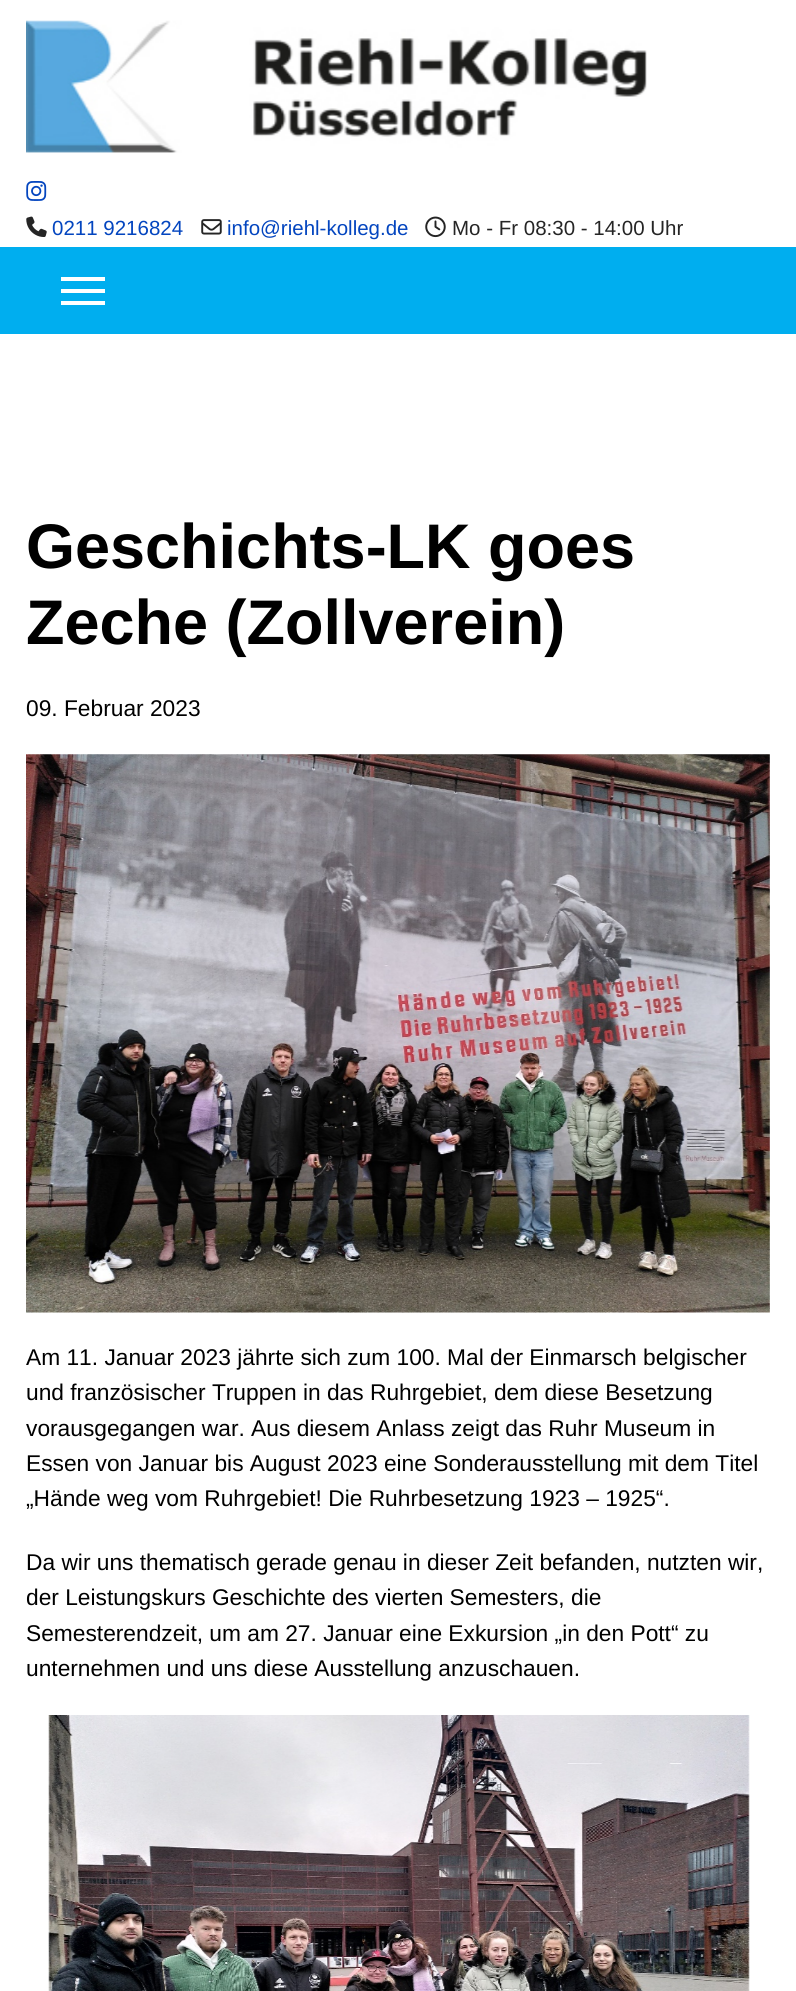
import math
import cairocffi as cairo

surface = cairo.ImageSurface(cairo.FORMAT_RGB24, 796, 1991)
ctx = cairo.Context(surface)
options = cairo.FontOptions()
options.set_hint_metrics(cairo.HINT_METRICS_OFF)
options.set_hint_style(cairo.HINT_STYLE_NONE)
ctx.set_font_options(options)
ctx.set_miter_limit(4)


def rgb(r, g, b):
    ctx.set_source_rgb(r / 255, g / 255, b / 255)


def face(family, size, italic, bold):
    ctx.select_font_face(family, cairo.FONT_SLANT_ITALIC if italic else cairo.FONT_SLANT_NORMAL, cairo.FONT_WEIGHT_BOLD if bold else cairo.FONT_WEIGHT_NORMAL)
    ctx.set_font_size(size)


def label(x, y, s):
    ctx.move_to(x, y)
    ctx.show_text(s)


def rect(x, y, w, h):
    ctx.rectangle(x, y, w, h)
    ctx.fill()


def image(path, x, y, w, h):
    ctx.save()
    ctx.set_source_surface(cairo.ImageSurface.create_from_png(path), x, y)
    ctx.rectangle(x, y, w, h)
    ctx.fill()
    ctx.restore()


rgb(255, 255, 255)
ctx.paint()
image('image0.png', 26, 20, 621, 133)
image('image1.png', 26, 181, 21, 20)
image('image2.png', 26, 216, 21, 21)
face('Liberation Sans', 20.5, 0, 0)
rgb(3, 69, 191)
label(52, 235, '0211 9216824')
image('image3.png', 201, 219, 21, 16)
label(227, 235, 'info@riehl-kolleg.de')
image('image4.png', 425, 216, 21, 22)
rgb(37, 37, 37)
label(452, 235, 'Mo - Fr 08:30 - 14:00 Uhr')
rgb(0, 174, 239)
rect(0, 247, 796, 87)
rgb(255, 255, 255)
rect(61, 277, 44, 4)
rect(61, 289, 44, 4)
rect(61, 301, 44, 4)
face('Liberation Sans', 63, 0, 1)
rgb(0, 0, 0)
label(26, 568, 'Geschichts-LK goes')
label(26, 644, 'Zeche (Zollverein)')
face('Liberation Sans', 22.75, 0, 0)
label(26, 716, '09. Februar 2023')
image('image5.png', 26, 754, 744, 559)
label(26, 1365, 'Am 11. Januar 2023 jährte sich zum 100. Mal der Einmarsch belgischer')
label(26, 1400, 'und französischer Truppen in das Ruhrgebiet, dem diese Besetzung')
label(26, 1436, 'vorausgegangen war. Aus diesem Anlass zeigt das Ruhr Museum in')
label(26, 1471, 'Essen von Januar bis August 2023 eine Sonderausstellung mit dem Titel')
label(26, 1506, '„Hände weg vom Ruhrgebiet! Die Ruhrbesetzung 1923 – 1925“.')
label(26, 1570, 'Da wir uns thematisch gerade genau in dieser Zeit befanden, nutzten wir,')
label(26, 1605, 'der Leistungskurs Geschichte des vierten Semesters, die')
label(26, 1641, 'Semesterendzeit, um am 27. Januar eine Exkursion „in den Pott“ zu')
label(26, 1676, 'unternehmen und uns diese Ausstellung anzuschauen.')
image('image6.png', 48, 1715, 702, 276)
surface.write_to_png('render.png')
